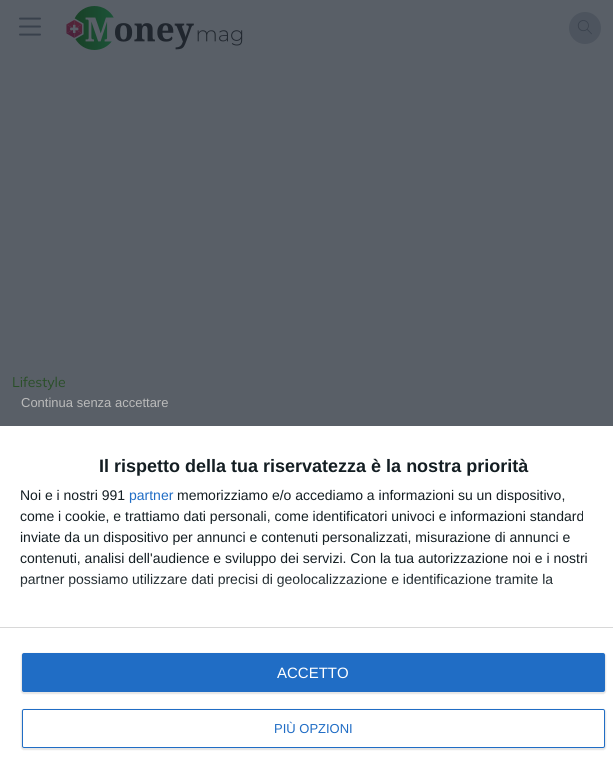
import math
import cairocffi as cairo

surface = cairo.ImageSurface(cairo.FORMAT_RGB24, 613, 776)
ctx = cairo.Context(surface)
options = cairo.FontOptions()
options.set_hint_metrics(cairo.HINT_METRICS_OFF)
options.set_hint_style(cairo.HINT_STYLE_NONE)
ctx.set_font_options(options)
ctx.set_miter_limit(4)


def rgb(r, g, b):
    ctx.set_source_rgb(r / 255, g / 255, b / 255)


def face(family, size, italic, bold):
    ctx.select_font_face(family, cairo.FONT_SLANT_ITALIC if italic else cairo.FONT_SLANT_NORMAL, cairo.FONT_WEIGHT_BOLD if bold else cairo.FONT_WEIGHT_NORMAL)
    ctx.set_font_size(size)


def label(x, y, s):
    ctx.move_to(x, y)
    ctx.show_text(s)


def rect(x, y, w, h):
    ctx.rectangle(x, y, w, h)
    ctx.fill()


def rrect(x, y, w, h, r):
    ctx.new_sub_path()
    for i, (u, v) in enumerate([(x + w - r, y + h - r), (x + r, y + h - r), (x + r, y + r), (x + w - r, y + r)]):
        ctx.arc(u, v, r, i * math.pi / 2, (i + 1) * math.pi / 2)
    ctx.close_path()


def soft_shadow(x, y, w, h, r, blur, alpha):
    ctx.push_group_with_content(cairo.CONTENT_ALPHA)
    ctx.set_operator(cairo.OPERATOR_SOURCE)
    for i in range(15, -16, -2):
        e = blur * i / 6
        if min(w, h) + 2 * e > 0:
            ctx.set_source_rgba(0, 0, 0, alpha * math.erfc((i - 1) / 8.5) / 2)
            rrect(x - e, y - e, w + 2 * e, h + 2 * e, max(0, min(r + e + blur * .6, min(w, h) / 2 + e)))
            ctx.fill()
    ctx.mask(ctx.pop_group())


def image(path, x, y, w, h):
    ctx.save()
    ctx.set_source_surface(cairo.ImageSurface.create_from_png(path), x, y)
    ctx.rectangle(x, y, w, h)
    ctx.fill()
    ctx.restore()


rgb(89, 95, 103)
ctx.paint()
image('image0.png', 19, 17, 22, 19)
image('image1.png', 66, 6, 177, 44)
rgb(77, 84, 94)
ctx.arc(585, 28, 16, 0, 2 * math.pi)
ctx.fill()
image('image2.png', 577, 20, 15, 15)
face('Mulish', 14, 0, 0)
rgb(42, 79, 40)
label(12, 387, 'Lifestyle')
rgb(255, 255, 255)
rect(0, 426, 613, 350)
face('Liberation Sans', 13, 0, 0)
rgb(186, 186, 186)
label(21, 407, 'Continua senza accettare')
face('Liberation Sans', 18, 0, 1)
rgb(20, 30, 35)
label(99, 472, 'Il rispetto della tua riservatezza è la nostra priorità')
face('Liberation Sans', 14, 0, 0)
label(20, 500, 'Noi e i nostri 991')
rgb(32, 109, 197)
label(129, 500, 'partner')
rgb(20, 30, 35)
label(177, 500, 'memorizziamo e/o accediamo a informazioni su un dispositivo,')
label(20, 521, 'come i cookie, e trattiamo dati personali, come identificatori univoci e informazioni standard')
label(20, 542, 'inviate da un dispositivo per annunci e contenuti personalizzati, misurazione di annunci e')
label(20, 563, 'contenuti, analisi dell\'audience e sviluppo dei servizi. Con la tua autorizzazione noi e i nostri')
label(20, 584, 'partner possiamo utilizzare dati precisi di geolocalizzazione e identificazione tramite la')
rgb(216, 216, 216)
rect(0, 627, 613, 1)
gradient = cairo.LinearGradient(307, 627, 307, 577)
gradient.add_color_stop_rgba(0, 1, 1, 1, 1)
gradient.add_color_stop_rgba(1, 1, 1, 1, 0)
ctx.set_source(gradient)
rect(21, 578, 532, 9)
rgb(0, 0, 0)
soft_shadow(21, 653, 585, 41, 3, 0.5, 0.1)
rgb(32, 109, 197)
rrect(22, 653, 583, 39, 2)
ctx.fill()
face('Liberation Sans', 15, 0, 0)
rgb(255, 255, 255)
label(277, 678, 'ACCETTO')
rgb(0, 0, 0)
soft_shadow(21, 709, 585, 41, 3, 0.5, 0.1)
rgb(255, 255, 255)
rrect(22.5, 709.5, 582, 38, 1.5)
ctx.fill_preserve()
rgb(32, 109, 197)
ctx.set_line_width(1)
ctx.stroke()
face('Liberation Sans', 13, 0, 0)
label(274, 733, 'PIÙ OPZIONI')
surface.write_to_png('render.png')
